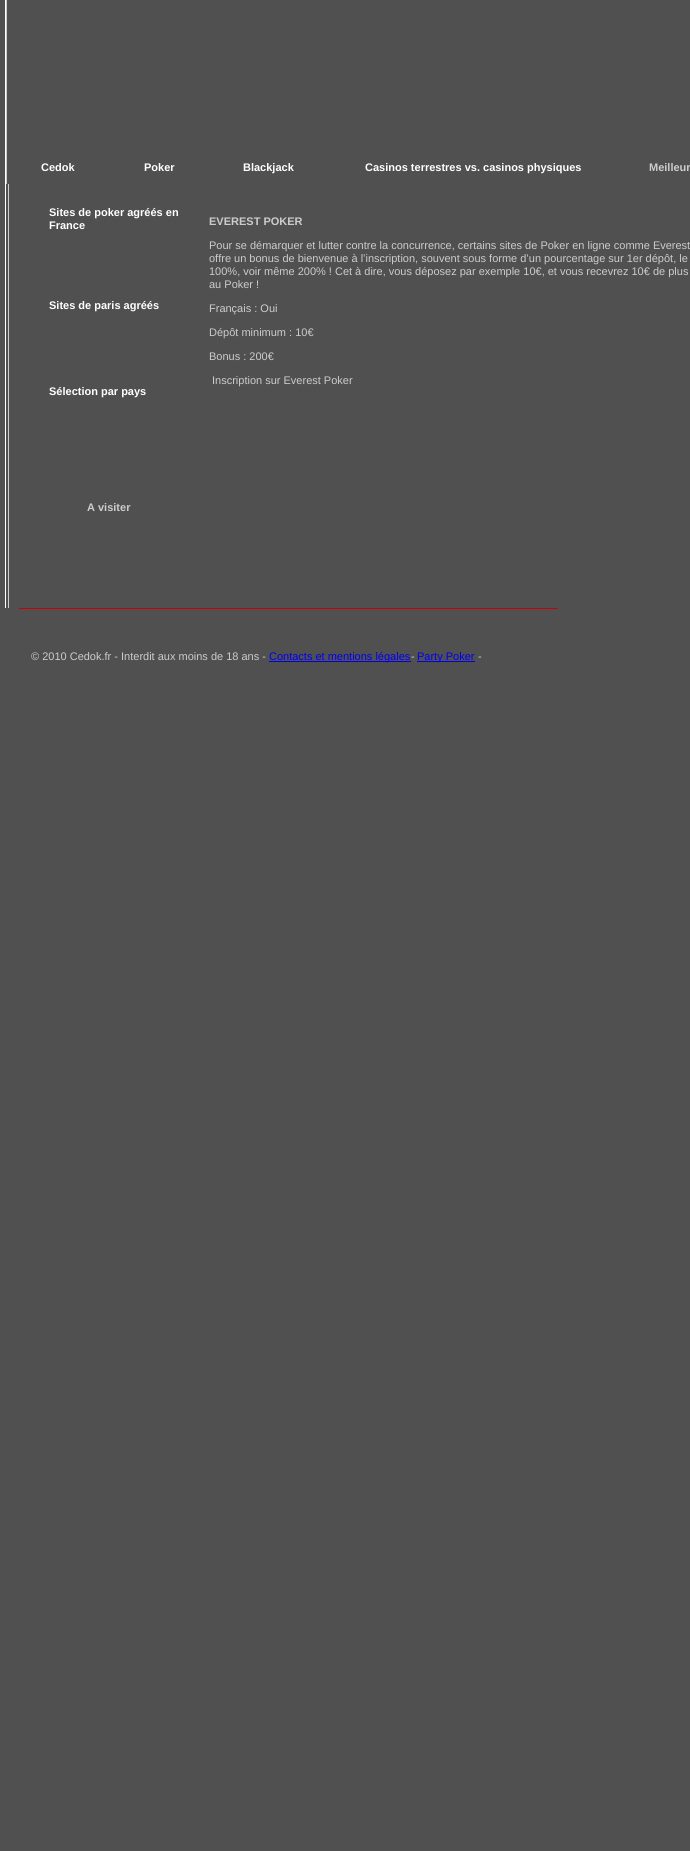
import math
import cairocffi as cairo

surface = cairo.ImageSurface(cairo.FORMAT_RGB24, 690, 1851)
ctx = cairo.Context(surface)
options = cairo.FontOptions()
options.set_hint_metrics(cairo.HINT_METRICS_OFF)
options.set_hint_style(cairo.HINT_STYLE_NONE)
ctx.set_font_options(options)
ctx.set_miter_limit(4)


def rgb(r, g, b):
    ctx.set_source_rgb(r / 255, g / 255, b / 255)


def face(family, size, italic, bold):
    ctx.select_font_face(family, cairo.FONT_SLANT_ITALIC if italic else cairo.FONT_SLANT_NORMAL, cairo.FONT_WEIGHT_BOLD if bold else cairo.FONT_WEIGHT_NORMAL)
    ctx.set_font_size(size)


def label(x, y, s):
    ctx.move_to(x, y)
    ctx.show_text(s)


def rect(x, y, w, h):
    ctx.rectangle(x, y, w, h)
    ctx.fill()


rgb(80, 80, 80)
ctx.paint()
rgb(255, 255, 255)
rect(5, 0, 1, 608)
rgb(204, 204, 204)
rect(6, 0, 1, 184)
face('Liberation Sans', 11, 0, 1)
rgb(255, 255, 255)
label(41, 171, 'Cedok')
label(144, 171, 'Poker')
label(243, 171, 'Blackjack')
label(365, 171, 'Casinos terrestres vs. casinos physiques')
rgb(204, 204, 204)
label(649, 171, 'Meilleur')
rect(8, 184, 1, 424)
rgb(255, 255, 255)
label(49, 216, 'Sites de poker agréés en')
label(49, 229, 'France')
label(49, 309, 'Sites de paris agréés')
label(49, 395, 'Sélection par pays')
rgb(204, 204, 204)
label(87, 511, 'A visiter')
label(209, 225, 'EVEREST POKER')
face('Liberation Sans', 11, 0, 0)
label(209, 249, 'Pour se démarquer et lutter contre la concurrence, certains sites de Poker en ligne comme Everest')
label(209, 262, 'offre un bonus de bienvenue à l’inscription, souvent sous forme d’un pourcentage sur 1er dépôt, le')
label(209, 275, '100%, voir même 200% ! Cet à dire, vous déposez par exemple 10€, et vous recevrez 10€ de plus')
label(209, 288, 'au Poker !')
label(209, 312, 'Français : Oui')
label(209, 336, 'Dépôt minimum : 10€')
label(209, 360, 'Bonus : 200€')
label(212, 384, 'Inscription sur Everest Poker')
rgb(204, 0, 0)
rect(19, 608, 539, 1)
rgb(204, 204, 204)
label(31, 660, '© 2010 Cedok.fr - Interdit aux moins de 18 ans -')
rgb(0, 0, 238)
rect(269, 661, 142, 1)
label(269, 660, 'Contacts et mentions légales')
rgb(204, 204, 204)
label(411, 660, '-')
rgb(0, 0, 238)
rect(417, 661, 58, 1)
label(417, 660, 'Party Poker')
rgb(204, 204, 204)
label(478, 660, '-')
surface.write_to_png('render.png')
